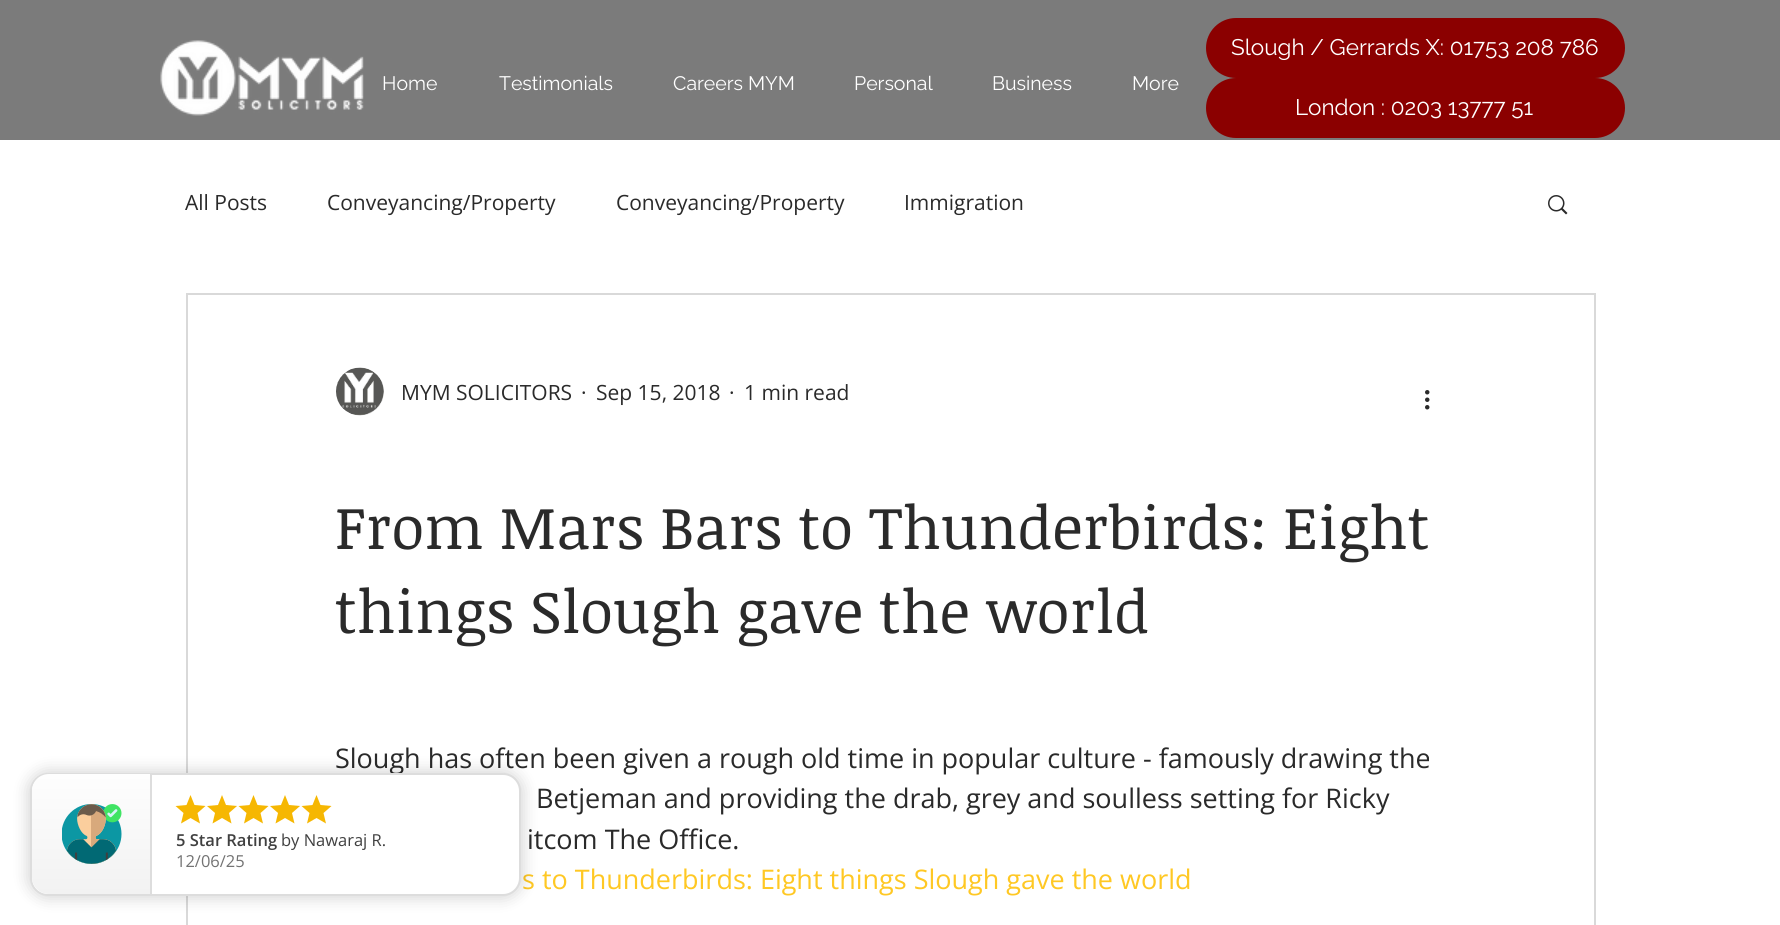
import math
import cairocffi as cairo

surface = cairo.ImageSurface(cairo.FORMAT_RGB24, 1780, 925)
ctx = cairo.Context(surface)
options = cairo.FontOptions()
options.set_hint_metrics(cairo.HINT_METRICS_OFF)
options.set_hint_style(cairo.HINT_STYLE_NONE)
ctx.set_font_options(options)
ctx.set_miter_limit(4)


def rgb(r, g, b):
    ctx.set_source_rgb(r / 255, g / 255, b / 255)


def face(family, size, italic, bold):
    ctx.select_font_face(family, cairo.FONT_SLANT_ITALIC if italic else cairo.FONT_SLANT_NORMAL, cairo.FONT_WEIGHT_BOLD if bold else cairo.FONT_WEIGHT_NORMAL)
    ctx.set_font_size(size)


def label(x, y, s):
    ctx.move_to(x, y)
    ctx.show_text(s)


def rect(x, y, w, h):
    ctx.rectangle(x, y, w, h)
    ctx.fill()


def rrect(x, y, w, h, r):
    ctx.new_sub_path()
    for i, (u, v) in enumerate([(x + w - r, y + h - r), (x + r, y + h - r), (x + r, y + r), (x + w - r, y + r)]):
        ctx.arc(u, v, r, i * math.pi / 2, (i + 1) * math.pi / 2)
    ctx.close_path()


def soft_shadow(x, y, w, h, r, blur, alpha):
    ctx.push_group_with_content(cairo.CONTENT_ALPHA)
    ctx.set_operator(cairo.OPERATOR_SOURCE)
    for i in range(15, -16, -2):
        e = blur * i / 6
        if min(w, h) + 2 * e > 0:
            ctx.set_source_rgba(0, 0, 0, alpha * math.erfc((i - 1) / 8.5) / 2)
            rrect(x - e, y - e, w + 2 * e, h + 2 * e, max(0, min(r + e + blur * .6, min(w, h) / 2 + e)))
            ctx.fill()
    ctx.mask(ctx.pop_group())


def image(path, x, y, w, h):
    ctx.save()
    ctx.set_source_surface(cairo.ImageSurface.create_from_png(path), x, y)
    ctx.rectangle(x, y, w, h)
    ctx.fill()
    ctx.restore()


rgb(255, 255, 255)
ctx.paint()
rgb(123, 123, 123)
rect(0, 0, 1780, 140)
image('image0.png', 160, 40, 204, 76)
face('Raleway', 19.5, 0, 0)
rgb(255, 255, 255)
label(382, 90, 'Home')
label(499, 90, 'Testimonials')
label(673, 90, 'Careers MYM')
label(854, 90, 'Personal')
label(992, 90, 'Business')
label(1132, 90, 'More')
rgb(139, 0, 0)
rrect(1206, 18, 419, 60, 30)
ctx.fill()
face('Raleway', 22.5, 0, 0)
rgb(255, 255, 255)
label(1231, 55, 'Slough / Gerrards X: 01753 208 786')
rgb(139, 0, 0)
rrect(1206, 78, 419, 60, 30)
ctx.fill()
rgb(255, 255, 255)
label(1295, 115, 'London : 0203 13777 51')
face('Open Sans', 21, 0, 0)
rgb(42, 42, 42)
label(185, 210, 'All Posts')
label(327, 210, 'Conveyancing/Property')
label(616, 210, 'Conveyancing/Property')
label(904, 210, 'Immigration')
image('image1.png', 1548, 195, 20, 20)
ctx.rectangle(187, 294, 1408, 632)
rgb(217, 217, 217)
ctx.stroke()
image('image2.png', 336, 367, 48, 49)
rgb(42, 42, 42)
label(401, 400, 'MYM SOLICITORS')
label(581, 400, '·')
label(596, 400, 'Sep 15, 2018')
label(729, 400, '·')
label(744, 400, '1 min read')
image('image3.png', 1425, 390, 5, 20)
face('Noticia Text', 60, 0, 0)
label(335, 549, 'From Mars Bars to Thunderbirds: Eight')
label(335, 633, 'things Slough gave the world')
face('Open Sans', 27, 0, 0)
label(335, 768, 'Slough has often been given a rough old time in popular culture - famously drawing the')
label(536, 808, 'Betjeman and providing the drab, grey and soulless setting for Ricky')
label(527, 849, 'itcom The Office.')
rgb(255, 200, 36)
label(522, 889, 's to Thunderbirds: Eight things Slough gave the world')
rgb(0, 0, 0)
soft_shadow(27, 770, 497, 129, 21, 7.5, 0.15)
rgb(255, 255, 255)
rrect(31, 774, 489, 121, 17)
ctx.fill_preserve()
rgb(221, 221, 221)
ctx.stroke()
gradient = cairo.LinearGradient(91, 774, 91, 894)
gradient.add_color_stop_rgba(0, 0.996, 0.996, 0.996, 1)
gradient.add_color_stop_rgba(1, 0.949, 0.949, 0.949, 1)
ctx.set_source(gradient)
ctx.new_path()
ctx.move_to(49, 774)
ctx.line_to(152, 774)
ctx.line_to(152, 894)
ctx.line_to(49, 894)
ctx.curve_to(39.5, 894, 32, 886.5, 32, 877)
ctx.line_to(32, 791)
ctx.curve_to(32, 781.5, 39.5, 774, 49, 774)
ctx.close_path()
ctx.fill()
rgb(221, 221, 221)
rect(150, 774, 2, 120)
image('image4.png', 62, 804, 60, 60)
rgb(246, 183, 2)
ctx.new_path()
ctx.move_to(190.5, 818)
ctx.line_to(181, 823.5)
ctx.line_to(183.5, 813)
ctx.line_to(175.5, 806)
ctx.line_to(186.5, 805)
ctx.line_to(190.5, 795)
ctx.line_to(194.5, 805)
ctx.line_to(205.5, 806)
ctx.line_to(197.5, 813)
ctx.line_to(200, 823.5)
ctx.close_path()
ctx.move_to(222, 818)
ctx.line_to(212.5, 823.5)
ctx.line_to(215, 813)
ctx.line_to(207, 806)
ctx.line_to(218, 805)
ctx.line_to(222, 795)
ctx.line_to(226, 805)
ctx.line_to(237, 806)
ctx.line_to(229, 813)
ctx.line_to(231.5, 823.5)
ctx.close_path()
ctx.fill()
ctx.new_path()
ctx.move_to(253.5, 818)
ctx.line_to(244, 823.5)
ctx.line_to(246.5, 813)
ctx.line_to(238.5, 806)
ctx.line_to(249.5, 805)
ctx.line_to(253.5, 795)
ctx.line_to(257.5, 805)
ctx.line_to(268.5, 806)
ctx.line_to(260.5, 813)
ctx.line_to(263, 823.5)
ctx.close_path()
ctx.move_to(285, 818)
ctx.line_to(275.5, 823.5)
ctx.line_to(278, 813)
ctx.line_to(270, 806)
ctx.line_to(281, 805)
ctx.line_to(285, 795)
ctx.line_to(289, 805)
ctx.line_to(300, 806)
ctx.line_to(292, 813)
ctx.line_to(294.5, 823.5)
ctx.close_path()
ctx.fill()
ctx.new_path()
ctx.move_to(316.5, 818)
ctx.line_to(307, 823.5)
ctx.line_to(309.5, 813)
ctx.line_to(301.5, 806)
ctx.line_to(312.5, 805)
ctx.line_to(316.5, 795)
ctx.line_to(320.5, 805)
ctx.line_to(331.5, 806)
ctx.line_to(323.5, 813)
ctx.line_to(326, 823.5)
ctx.close_path()
ctx.fill()
face('Open Sans SemiBold', 16.5, 0, 0)
rgb(64, 64, 64)
label(176, 846, '5 Star Rating')
face('Open Sans', 16.5, 0, 0)
label(281, 846, 'by Nawaraj R.')
rgb(115, 115, 115)
label(176, 867, '12/06/25')
surface.write_to_png('render.png')
